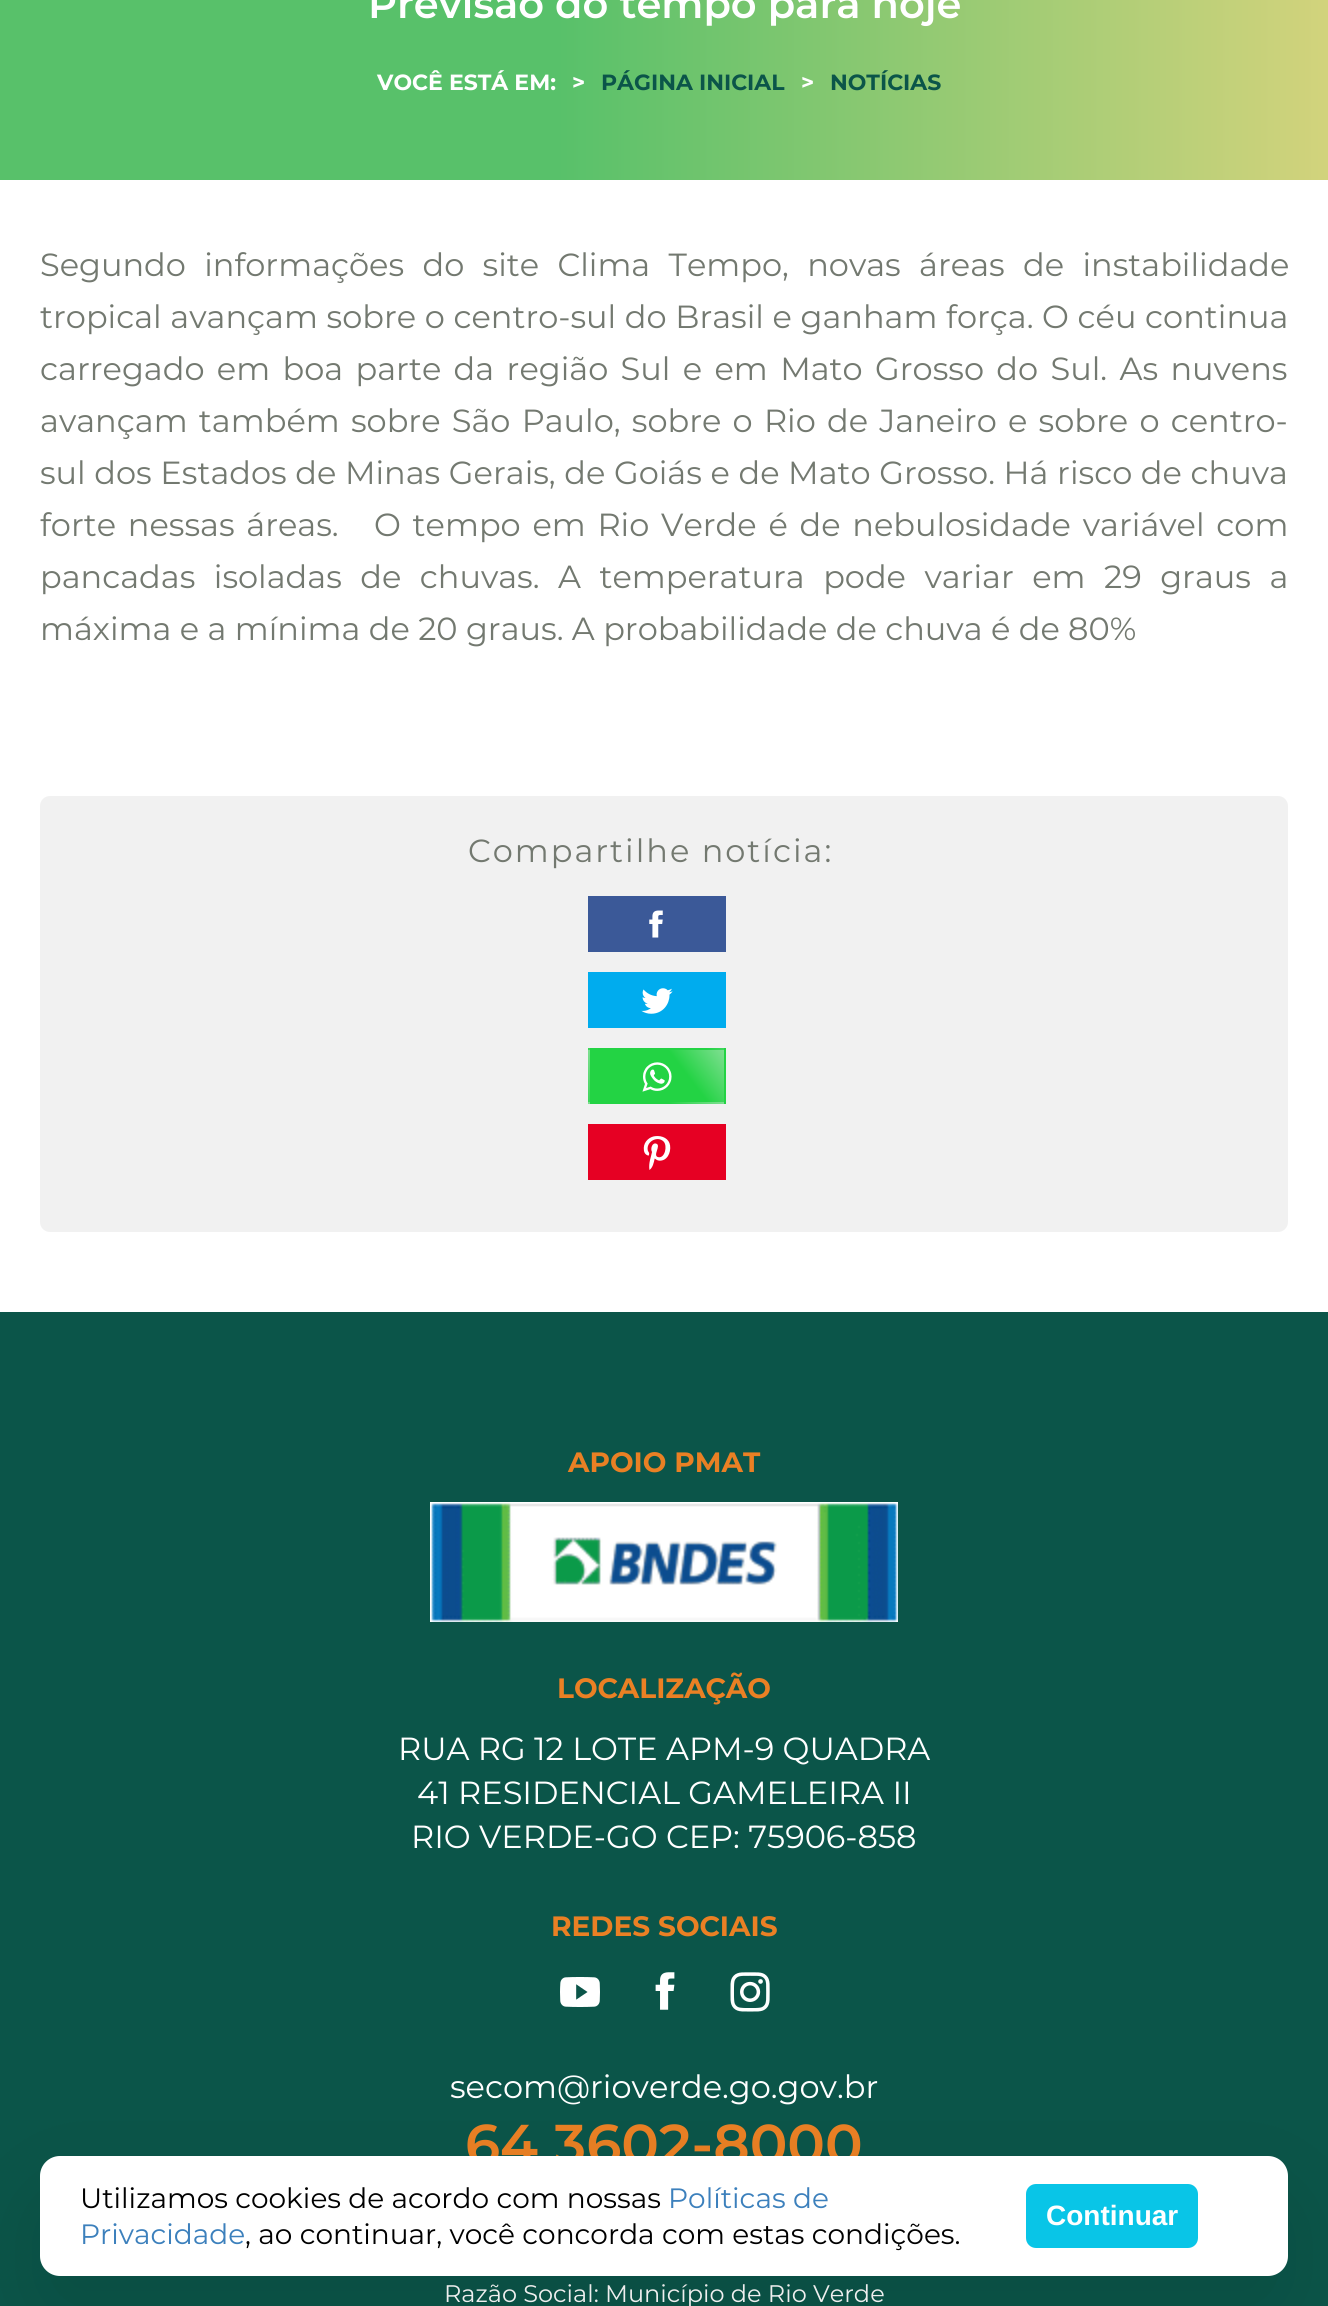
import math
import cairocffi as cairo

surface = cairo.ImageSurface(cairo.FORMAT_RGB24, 1328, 2306)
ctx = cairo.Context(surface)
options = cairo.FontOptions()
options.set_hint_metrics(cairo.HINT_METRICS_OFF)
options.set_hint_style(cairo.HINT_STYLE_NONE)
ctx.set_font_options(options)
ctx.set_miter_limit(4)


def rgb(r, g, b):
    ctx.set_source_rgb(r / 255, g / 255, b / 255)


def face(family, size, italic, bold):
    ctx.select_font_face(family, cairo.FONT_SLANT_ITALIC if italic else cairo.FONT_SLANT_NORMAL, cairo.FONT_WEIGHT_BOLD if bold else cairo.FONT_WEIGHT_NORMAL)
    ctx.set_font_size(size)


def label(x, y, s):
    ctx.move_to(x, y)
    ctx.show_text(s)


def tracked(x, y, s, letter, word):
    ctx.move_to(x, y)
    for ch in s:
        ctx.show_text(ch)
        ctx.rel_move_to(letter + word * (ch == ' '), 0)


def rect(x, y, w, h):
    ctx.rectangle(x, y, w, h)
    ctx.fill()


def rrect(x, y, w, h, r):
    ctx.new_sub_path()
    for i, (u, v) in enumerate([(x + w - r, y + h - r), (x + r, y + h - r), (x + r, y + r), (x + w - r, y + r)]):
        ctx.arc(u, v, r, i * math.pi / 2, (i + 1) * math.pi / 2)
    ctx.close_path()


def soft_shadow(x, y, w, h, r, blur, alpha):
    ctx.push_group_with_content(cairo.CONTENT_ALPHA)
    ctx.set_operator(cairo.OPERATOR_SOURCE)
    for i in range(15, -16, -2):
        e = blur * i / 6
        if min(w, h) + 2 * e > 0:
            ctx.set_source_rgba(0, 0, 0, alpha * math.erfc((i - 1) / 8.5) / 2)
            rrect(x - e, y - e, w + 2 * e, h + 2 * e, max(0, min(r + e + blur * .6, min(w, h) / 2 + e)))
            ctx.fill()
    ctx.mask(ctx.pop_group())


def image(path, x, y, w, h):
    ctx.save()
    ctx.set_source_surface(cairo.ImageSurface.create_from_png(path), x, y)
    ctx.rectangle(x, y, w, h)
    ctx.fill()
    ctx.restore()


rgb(255, 255, 255)
ctx.paint()
gradient = cairo.LinearGradient(1328, -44, 0, -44)
gradient.add_color_stop_rgba(0, 0.824, 0.827, 0.486, 1)
gradient.add_color_stop_rgba(0.58, 0.345, 0.757, 0.416, 1)
ctx.set_source(gradient)
rect(0, 0, 1328, 180)
face('Montserrat SemiBold', 40, 0, 0)
rgb(255, 255, 255)
label(368, 18, 'Previsão do tempo para hoje')
face('Montserrat', 22, 0, 1)
label(377, 90, 'VOCÊ ESTÁ EM:')
label(572, 90, '>')
rgb(11, 85, 73)
label(601, 90, 'PÁGINA INICIAL')
rgb(255, 255, 255)
label(801, 90, '>')
rgb(11, 85, 73)
label(830, 90, 'NOTÍCIAS')
face('Montserrat', 32, 0, 0)
rgb(115, 121, 112)
tracked(40, 276, 'Segundo informações do site Clima Tempo, novas áreas de instabilidade', 0, 10)
tracked(40, 328, 'tropical avançam sobre o centro-sul do Brasil e ganham força. O céu continua', 0, 0.25)
tracked(40, 380, 'carregado em boa parte da região Sul e em Mato Grosso do Sul. As nuvens', 0, 4)
tracked(40, 432, 'avançam também sobre São Paulo, sobre o Rio de Janeiro e sobre o centro-', 0, 2.9)
tracked(40, 484, 'sul dos Estados de Minas Gerais, de Goiás e de Mato Grosso. Há risco de chuva', 0, 0.25)
tracked(40, 536, 'forte nessas áreas.   O tempo em Rio Verde é de nebulosidade variável com', 0, 3.4)
tracked(40, 588, 'pancadas isoladas de chuvas. A temperatura pode variar em 29 graus a', 0, 10.1)
label(40, 640, 'máxima e a mínima de 20 graus. A probabilidade de chuva é de 80%')
rgb(241, 241, 241)
rrect(40, 796, 1248, 436, 10)
ctx.fill()
rgb(115, 121, 112)
tracked(468, 862, 'Compartilhe notícia:', 2, 0)
rgb(59, 89, 152)
rect(588, 896, 138, 56)
image('image0.png', 649, 910, 14, 28)
rgb(0, 172, 238)
rect(588, 972, 138, 56)
image('image1.png', 641, 988, 32, 26)
gradient = cairo.LinearGradient(583, 979, 468, 1066)
gradient.add_color_stop_rgba(0, 0.545, 0.878, 0.608, 1)
gradient.add_color_stop_rgba(0.35, 0.137, 0.827, 0.267, 1)
ctx.set_source(gradient)
rect(588, 1048, 2, 2)
gradient = cairo.LinearGradient(717, 979, 602, 1066)
gradient.add_color_stop_rgba(0, 0.545, 0.878, 0.608, 1)
gradient.add_color_stop_rgba(0.35, 0.137, 0.827, 0.267, 1)
ctx.set_source(gradient)
rect(590, 1048, 134, 2)
gradient = cairo.LinearGradient(851, 979, 736, 1066)
gradient.add_color_stop_rgba(0, 0.545, 0.878, 0.608, 1)
gradient.add_color_stop_rgba(0.35, 0.137, 0.827, 0.267, 1)
ctx.set_source(gradient)
rect(724, 1048, 2, 2)
gradient = cairo.LinearGradient(583, 1031, 468, 1118)
gradient.add_color_stop_rgba(0, 0.545, 0.878, 0.608, 1)
gradient.add_color_stop_rgba(0.35, 0.137, 0.827, 0.267, 1)
ctx.set_source(gradient)
rect(588, 1050, 2, 52)
gradient = cairo.LinearGradient(717, 1031, 602, 1118)
gradient.add_color_stop_rgba(0, 0.545, 0.878, 0.608, 1)
gradient.add_color_stop_rgba(0.35, 0.137, 0.827, 0.267, 1)
ctx.set_source(gradient)
rect(590, 1050, 134, 52)
gradient = cairo.LinearGradient(851, 1031, 736, 1118)
gradient.add_color_stop_rgba(0, 0.545, 0.878, 0.608, 1)
gradient.add_color_stop_rgba(0.35, 0.137, 0.827, 0.267, 1)
ctx.set_source(gradient)
rect(724, 1050, 2, 52)
gradient = cairo.LinearGradient(583, 1083, 468, 1170)
gradient.add_color_stop_rgba(0, 0.545, 0.878, 0.608, 1)
gradient.add_color_stop_rgba(0.35, 0.137, 0.827, 0.267, 1)
ctx.set_source(gradient)
rect(588, 1102, 2, 2)
gradient = cairo.LinearGradient(717, 1083, 602, 1170)
gradient.add_color_stop_rgba(0, 0.545, 0.878, 0.608, 1)
gradient.add_color_stop_rgba(0.35, 0.137, 0.827, 0.267, 1)
ctx.set_source(gradient)
rect(590, 1102, 134, 2)
gradient = cairo.LinearGradient(851, 1083, 736, 1170)
gradient.add_color_stop_rgba(0, 0.545, 0.878, 0.608, 1)
gradient.add_color_stop_rgba(0.35, 0.137, 0.827, 0.267, 1)
ctx.set_source(gradient)
rect(724, 1102, 2, 2)
image('image2.png', 642, 1062, 30, 30)
rgb(230, 0, 35)
rect(588, 1124, 138, 56)
image('image3.png', 643, 1136, 28, 34)
rgb(11, 85, 73)
rect(0, 1312, 1328, 994)
face('Montserrat', 28, 0, 1)
rgb(234, 128, 36)
label(568, 1472, 'APOIO PMAT')
image('image4.png', 430, 1502, 468, 120)
label(557, 1698, 'LOCALIZAÇÃO')
face('Montserrat', 32, 0, 0)
rgb(255, 255, 255)
label(398, 1760, 'RUA RG 12 LOTE APM-9 QUADRA')
label(417, 1804, '41 RESIDENCIAL GAMELEIRA II')
label(411, 1848, 'RIO VERDE-GO CEP: 75906-858')
face('Montserrat', 28, 0, 1)
rgb(234, 128, 36)
label(551, 1936, 'REDES SOCIAIS')
image('image5.png', 560, 1977, 40, 30)
image('image6.png', 655, 1972, 20, 38)
image('image7.png', 730, 1972, 40, 40)
face('Montserrat', 32, 0, 0)
rgb(255, 255, 255)
label(450, 2098, 'secom@rioverde.go.gov.br')
face('Montserrat SemiBold', 56, 0, 0)
rgb(234, 128, 36)
label(465, 2164, '64 3602-8000')
face('Montserrat', 24, 0, 0)
rgb(255, 255, 255)
label(444, 2302, 'Razão Social: Município de Rio Verde')
rgb(0, 0, 0)
soft_shadow(40, 2196, 1248, 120, 20, 50, 0.1)
rgb(255, 255, 255)
rrect(40, 2156, 1248, 120, 20)
ctx.fill()
face('Montserrat', 28, 0, 0)
rgb(0, 0, 0)
label(80, 2208, 'Utilizamos cookies de acordo com nossas')
rgb(60, 128, 188)
label(668, 2208, 'Políticas de')
label(80, 2244, 'Privacidade')
rgb(0, 0, 0)
label(245, 2244, ', ao continuar, você concorda com estas condições.')
rgb(9, 197, 231)
rrect(1026, 2184, 172, 64, 10)
ctx.fill()
face('Liberation Sans', 28, 0, 1)
rgb(255, 255, 255)
label(1046, 2225, 'Continuar')
surface.write_to_png('render.png')
